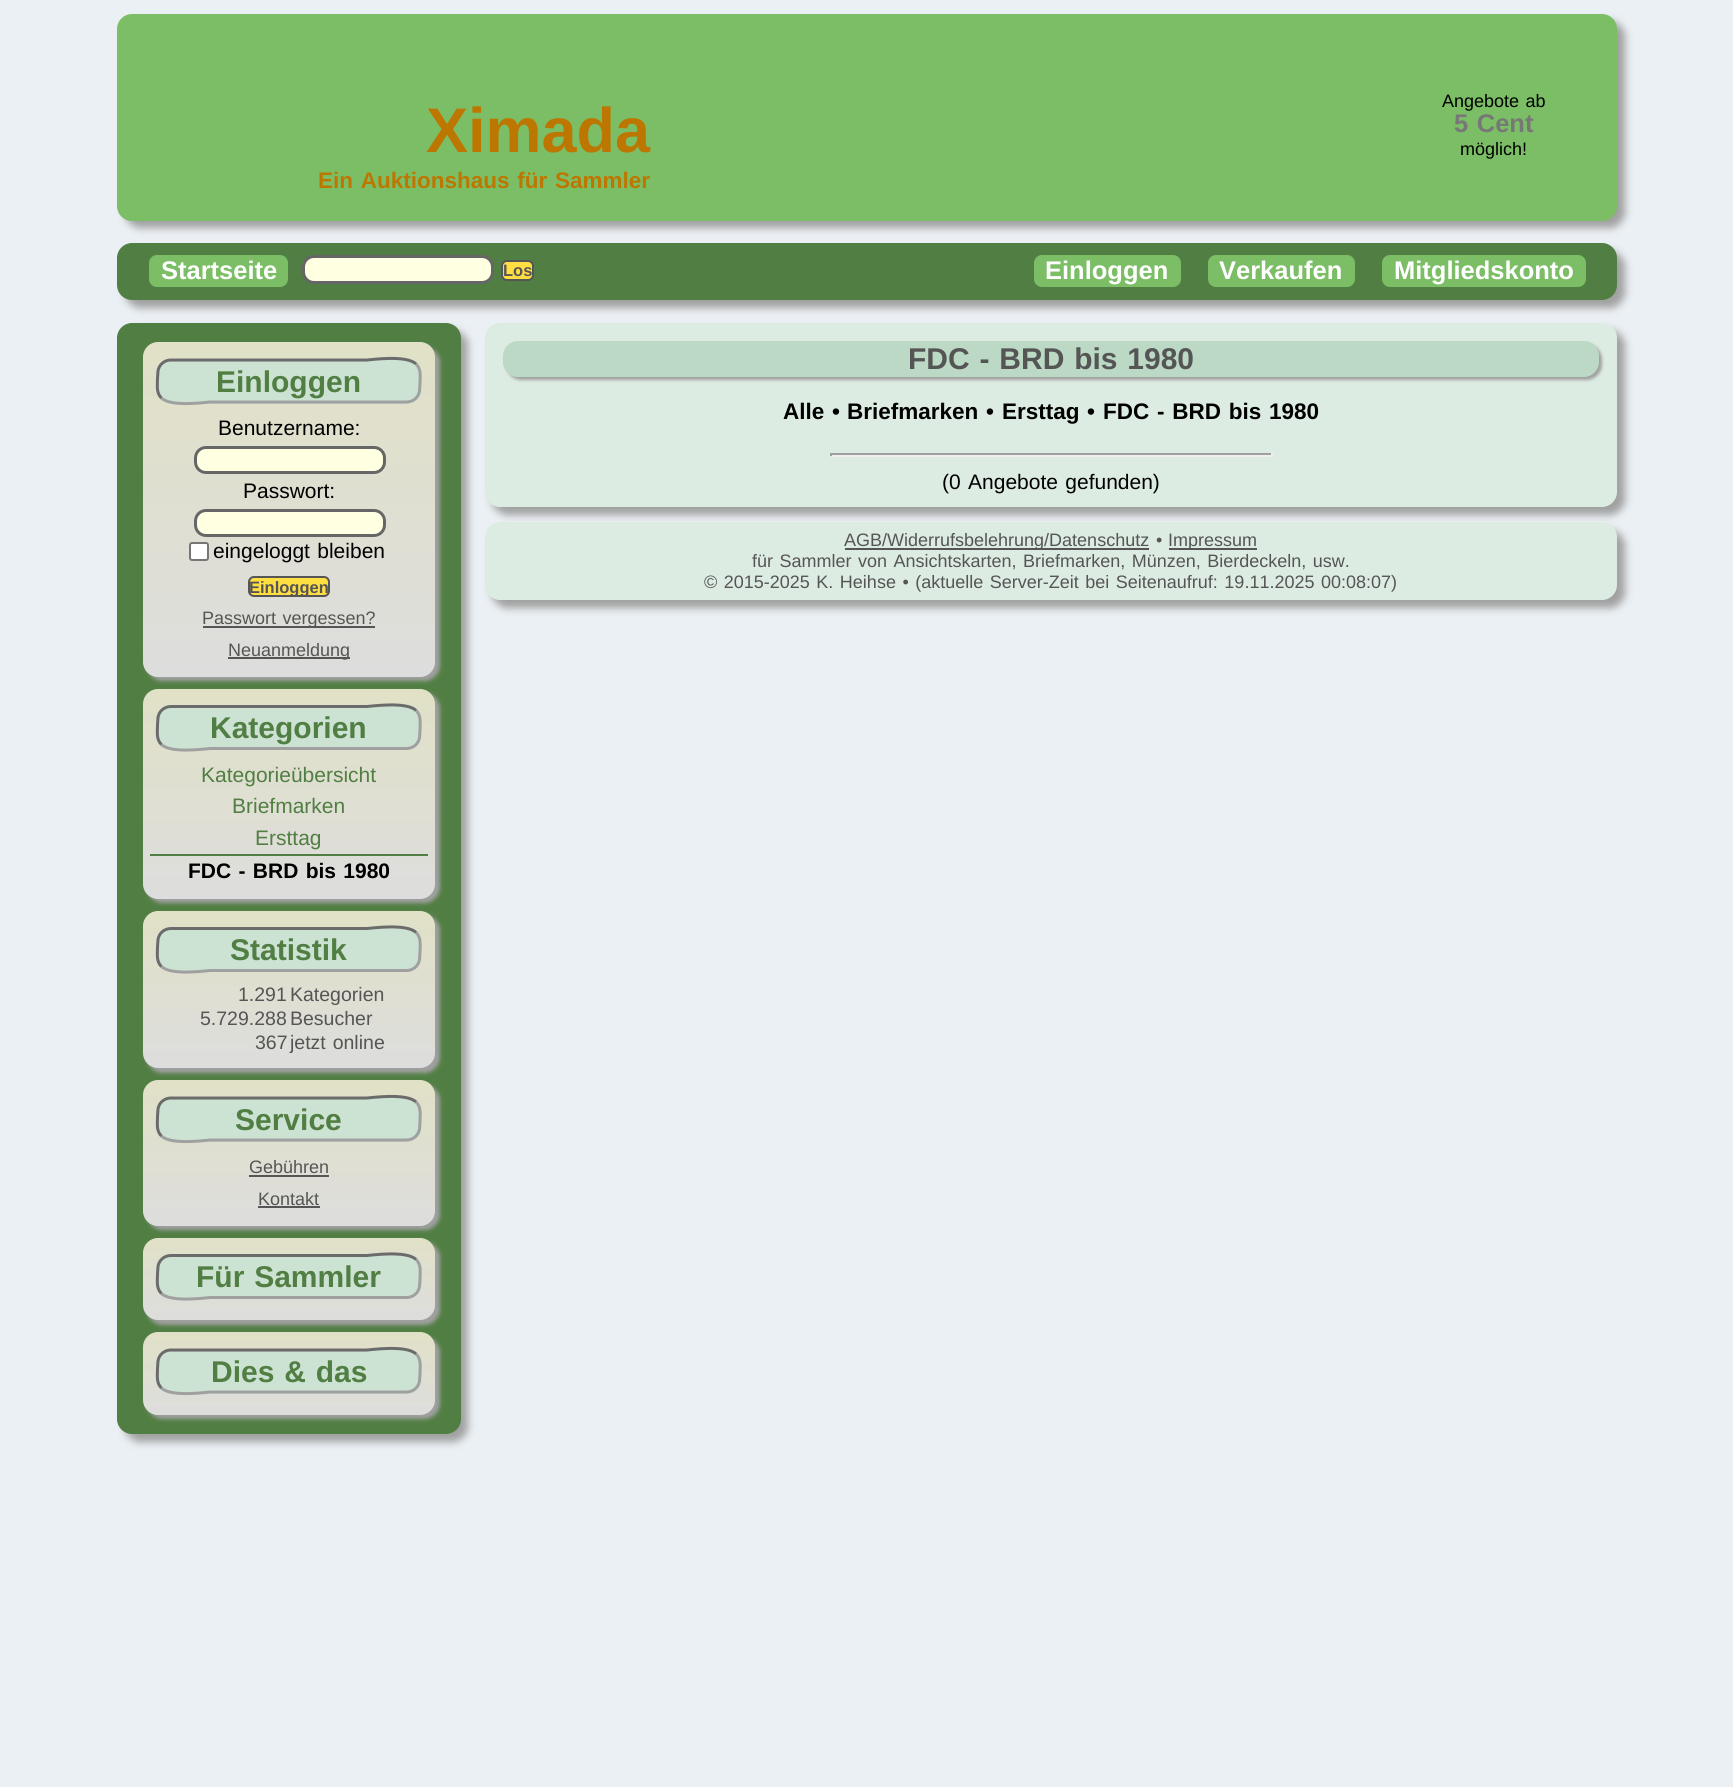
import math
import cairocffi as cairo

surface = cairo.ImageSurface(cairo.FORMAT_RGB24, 1733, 1787)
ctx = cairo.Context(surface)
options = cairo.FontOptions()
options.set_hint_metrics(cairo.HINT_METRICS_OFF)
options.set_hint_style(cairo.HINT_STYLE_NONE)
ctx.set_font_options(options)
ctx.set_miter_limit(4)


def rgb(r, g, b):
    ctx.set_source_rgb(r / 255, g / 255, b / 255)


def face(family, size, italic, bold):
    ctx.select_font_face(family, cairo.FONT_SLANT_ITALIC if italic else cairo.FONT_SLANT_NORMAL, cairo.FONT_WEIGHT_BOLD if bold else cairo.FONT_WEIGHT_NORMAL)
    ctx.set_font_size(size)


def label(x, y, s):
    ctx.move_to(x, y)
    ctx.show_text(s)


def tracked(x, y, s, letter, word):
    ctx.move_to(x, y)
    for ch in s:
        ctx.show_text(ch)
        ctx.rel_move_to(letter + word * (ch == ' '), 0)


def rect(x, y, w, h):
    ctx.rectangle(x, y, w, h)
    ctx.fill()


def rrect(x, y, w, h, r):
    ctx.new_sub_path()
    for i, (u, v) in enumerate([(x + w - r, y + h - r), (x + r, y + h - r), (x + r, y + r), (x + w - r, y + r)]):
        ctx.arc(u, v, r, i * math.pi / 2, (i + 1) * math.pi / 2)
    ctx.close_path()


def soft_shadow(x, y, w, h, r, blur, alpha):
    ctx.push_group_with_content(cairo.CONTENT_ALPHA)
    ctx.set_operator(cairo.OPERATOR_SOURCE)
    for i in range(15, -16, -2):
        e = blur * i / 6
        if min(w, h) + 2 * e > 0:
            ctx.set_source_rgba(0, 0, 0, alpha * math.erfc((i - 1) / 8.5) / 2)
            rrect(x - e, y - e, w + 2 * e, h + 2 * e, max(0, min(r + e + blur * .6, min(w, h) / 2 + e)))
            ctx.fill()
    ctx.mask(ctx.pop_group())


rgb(235, 240, 244)
ctx.paint()
rgb(160, 160, 160)
soft_shadow(125, 21, 1500, 207, 15, 4, 1)
rgb(123, 190, 101)
rrect(117, 14, 1500, 207, 15)
ctx.fill()
face('Liberation Sans', 63, 0, 1)
rgb(189, 119, 1)
label(426, 152, 'Ximada')
face('Liberation Sans', 22.5, 0, 1)
tracked(318, 188, 'Ein Auktionshaus für Sammler', 0, 1.5)
face('Liberation Sans', 18, 0, 0)
rgb(0, 0, 0)
tracked(1442, 107, 'Angebote ab', 0, 1.5)
face('Liberation Sans', 25.5, 0, 1)
rgb(119, 119, 119)
tracked(1454, 132, '5 Cent', 0, 1.5)
face('Liberation Sans', 18, 0, 0)
rgb(0, 0, 0)
label(1460, 155, 'möglich!')
rgb(160, 160, 160)
soft_shadow(125, 251, 1500, 57, 15, 4, 1)
rgb(81, 126, 67)
rrect(117, 243, 1500, 57, 15)
ctx.fill()
rgb(123, 190, 101)
rrect(149, 255, 139, 32, 8)
ctx.fill()
face('Liberation Sans', 25.5, 0, 1)
rgb(255, 255, 255)
label(161, 279, 'Startseite')
rgb(255, 255, 226)
rrect(303.5, 256.5, 189, 26, 10.5)
ctx.fill_preserve()
rgb(102, 102, 102)
ctx.set_line_width(3)
ctx.stroke()
rgb(255, 222, 66)
rrect(502, 261, 31, 19, 5)
ctx.fill_preserve()
rgb(85, 85, 85)
ctx.set_line_width(2)
ctx.stroke()
face('Liberation Sans', 16.5, 0, 1)
label(503, 276, 'Los')
rgb(123, 190, 101)
rrect(1034, 255, 147, 32, 8)
ctx.fill()
face('Liberation Sans', 25.5, 0, 1)
rgb(255, 255, 255)
label(1045, 279, 'Einloggen')
rgb(123, 190, 101)
rrect(1208, 255, 147, 32, 8)
ctx.fill()
rgb(255, 255, 255)
label(1219, 279, 'Verkaufen')
rgb(123, 190, 101)
rrect(1382, 255, 204, 32, 8)
ctx.fill()
rgb(255, 255, 255)
label(1394, 279, 'Mitgliedskonto')
rgb(160, 160, 160)
soft_shadow(125, 330, 343, 1112, 15, 4, 1)
rgb(81, 126, 67)
rrect(117, 323, 344, 1111, 15)
ctx.fill()
rgb(160, 160, 160)
soft_shadow(147, 347, 293, 334, 15, 2, 1)
gradient = cairo.LinearGradient(289, 342, 289, 677)
gradient.add_color_stop_rgba(0, 0.882, 0.882, 0.78, 1)
gradient.add_color_stop_rgba(1, 0.867, 0.867, 0.867, 1)
ctx.set_source(gradient)
rrect(143, 342, 292, 335, 15)
ctx.fill()
rgb(204, 226, 211)
rrect(156, 359, 266, 45, 15)
ctx.fill()
ctx.new_path()
ctx.move_to(416, 364)
ctx.curve_to(421.5, 369, 420, 377, 420, 383.5)
ctx.line_to(419.5, 391)
ctx.curve_to(418.5, 397.5, 413, 402, 406.5, 402)
ctx.line_to(210, 402)
ctx.curve_to(208, 402, 171, 407.5, 161.5, 398)
rgb(160, 160, 160)
ctx.set_line_width(3)
ctx.stroke()
ctx.new_path()
ctx.move_to(161.5, 398)
ctx.curve_to(156, 393, 157.5, 385, 157.5, 378.5)
ctx.line_to(158, 371)
ctx.curve_to(159, 364.5, 164.5, 360, 171, 360)
ctx.line_to(367, 360)
ctx.curve_to(369.5, 360, 406.5, 354.5, 416, 364)
rgb(107, 107, 107)
ctx.stroke()
face('Liberation Sans', 30, 0, 1)
rgb(81, 126, 67)
label(216, 392, 'Einloggen')
face('Liberation Sans', 21, 0, 0)
rgb(0, 0, 0)
label(218, 435, 'Benutzername:')
rgb(255, 255, 226)
rrect(195.5, 447.5, 189, 25, 10.5)
ctx.fill_preserve()
rgb(102, 102, 102)
ctx.stroke()
rgb(0, 0, 0)
label(243, 498, 'Passwort:')
rgb(255, 255, 226)
rrect(195.5, 510.5, 189, 25, 10.5)
ctx.fill_preserve()
rgb(102, 102, 102)
ctx.stroke()
rgb(255, 255, 255)
rrect(190, 543, 18, 17, 2)
ctx.fill_preserve()
rgb(118, 118, 118)
ctx.set_line_width(2)
ctx.stroke()
rgb(0, 0, 0)
tracked(213, 558, 'eingeloggt bleiben', 0, 1.5)
rgb(255, 222, 66)
rrect(249, 577, 80, 19, 5)
ctx.fill_preserve()
rgb(85, 85, 85)
ctx.stroke()
ctx.save()
rrect(249, 578, 80, 18, 5)
ctx.clip()
face('Liberation Sans', 16.5, 0, 1)
label(249, 593, 'Einloggen')
ctx.restore()
rect(203, 626, 172, 2)
face('Liberation Sans', 18, 0, 0)
tracked(202, 624, 'Passwort vergessen?', 0, 1.5)
rect(228, 657, 122, 2)
label(228, 656, 'Neuanmeldung')
rgb(160, 160, 160)
soft_shadow(147, 693, 293, 210, 15, 2, 1)
gradient = cairo.LinearGradient(289, 689, 289, 899)
gradient.add_color_stop_rgba(0, 0.882, 0.882, 0.78, 1)
gradient.add_color_stop_rgba(1, 0.867, 0.867, 0.867, 1)
ctx.set_source(gradient)
rrect(143, 689, 292, 210, 15)
ctx.fill()
rgb(204, 226, 211)
rrect(156, 705, 266, 45, 15)
ctx.fill()
ctx.new_path()
ctx.move_to(416, 710.5)
ctx.curve_to(421.5, 715.5, 420, 723.5, 420, 730)
ctx.line_to(419.5, 737.5)
ctx.curve_to(418.5, 744, 413, 748.5, 406.5, 748.5)
ctx.line_to(210, 748.5)
ctx.curve_to(208, 748.5, 171, 754, 161.5, 744.5)
rgb(160, 160, 160)
ctx.set_line_width(3)
ctx.stroke()
ctx.new_path()
ctx.move_to(161.5, 744.5)
ctx.curve_to(156, 739.5, 157.5, 731.5, 157.5, 725)
ctx.line_to(158, 717.5)
ctx.curve_to(159, 711, 164.5, 706.5, 171, 706.5)
ctx.line_to(367, 706.5)
ctx.curve_to(369.5, 706.5, 406.5, 701, 416, 710.5)
rgb(107, 107, 107)
ctx.stroke()
face('Liberation Sans', 30, 0, 1)
rgb(81, 126, 67)
label(210, 738, 'Kategorien')
face('Liberation Sans', 21, 0, 0)
label(201, 782, 'Kategorieübersicht')
label(232, 813, 'Briefmarken')
label(255, 845, 'Ersttag')
rect(150, 854, 278, 2)
face('Liberation Sans', 21, 0, 1)
rgb(0, 0, 0)
tracked(188, 878, 'FDC - BRD bis 1980', 0, 1.5)
rgb(160, 160, 160)
soft_shadow(147, 915, 293, 158, 15, 2, 1)
gradient = cairo.LinearGradient(289, 911, 289, 1068)
gradient.add_color_stop_rgba(0, 0.882, 0.882, 0.78, 1)
gradient.add_color_stop_rgba(1, 0.867, 0.867, 0.867, 1)
ctx.set_source(gradient)
rrect(143, 911, 292, 157, 15)
ctx.fill()
rgb(204, 226, 211)
rrect(156, 927, 266, 45, 15)
ctx.fill()
ctx.new_path()
ctx.move_to(416, 932.5)
ctx.curve_to(421.5, 937.5, 420, 945.5, 420, 952)
ctx.line_to(419.5, 959.5)
ctx.curve_to(418.5, 966, 413, 970.5, 406.5, 970.5)
ctx.line_to(210, 970.5)
ctx.curve_to(208, 970.5, 171, 976, 161.5, 966.5)
rgb(160, 160, 160)
ctx.stroke()
ctx.new_path()
ctx.move_to(161.5, 966.5)
ctx.curve_to(156, 961.5, 157.5, 953.5, 157.5, 947)
ctx.line_to(158, 939.5)
ctx.curve_to(159, 933, 164.5, 928.5, 171, 928.5)
ctx.line_to(367, 928.5)
ctx.curve_to(369.5, 928.5, 406.5, 923, 416, 932.5)
rgb(107, 107, 107)
ctx.stroke()
face('Liberation Sans', 30, 0, 1)
rgb(81, 126, 67)
label(230, 960, 'Statistik')
face('Liberation Sans', 19.5, 0, 0)
rgb(85, 85, 85)
label(238, 1001, '1.291')
label(290, 1001, 'Kategorien')
label(200, 1025, '5.729.288')
label(290, 1025, 'Besucher')
label(255, 1049, '367')
tracked(290, 1049, 'jetzt online', 0, 1.5)
rgb(160, 160, 160)
soft_shadow(147, 1085, 293, 145, 15, 2, 1)
gradient = cairo.LinearGradient(289, 1080, 289, 1226)
gradient.add_color_stop_rgba(0, 0.882, 0.882, 0.78, 1)
gradient.add_color_stop_rgba(1, 0.867, 0.867, 0.867, 1)
ctx.set_source(gradient)
rrect(143, 1080, 292, 146, 15)
ctx.fill()
rgb(204, 226, 211)
rrect(156, 1097, 266, 45, 15)
ctx.fill()
ctx.new_path()
ctx.move_to(416, 1102)
ctx.curve_to(421.5, 1107, 420, 1115, 420, 1121.5)
ctx.line_to(419.5, 1129)
ctx.curve_to(418.5, 1135.5, 413, 1140, 406.5, 1140)
ctx.line_to(210, 1140)
ctx.curve_to(208, 1140, 171, 1145.5, 161.5, 1136)
rgb(160, 160, 160)
ctx.stroke()
ctx.new_path()
ctx.move_to(161.5, 1136)
ctx.curve_to(156, 1131, 157.5, 1123, 157.5, 1116.5)
ctx.line_to(158, 1109)
ctx.curve_to(159, 1102.5, 164.5, 1098, 171, 1098)
ctx.line_to(367, 1098)
ctx.curve_to(369.5, 1098, 406.5, 1092.5, 416, 1102)
rgb(107, 107, 107)
ctx.stroke()
face('Liberation Sans', 30, 0, 1)
rgb(81, 126, 67)
label(235, 1130, 'Service')
face('Liberation Sans', 18, 0, 0)
rgb(85, 85, 85)
label(249, 1173, 'Gebühren')
rect(249, 1175, 80, 2)
label(258, 1205, 'Kontakt')
rect(258, 1206, 62, 2)
rgb(160, 160, 160)
soft_shadow(147, 1242, 293, 83, 15, 2, 1)
gradient = cairo.LinearGradient(289, 1238, 289, 1320)
gradient.add_color_stop_rgba(0, 0.882, 0.882, 0.78, 1)
gradient.add_color_stop_rgba(1, 0.867, 0.867, 0.867, 1)
ctx.set_source(gradient)
rrect(143, 1238, 292, 82, 15)
ctx.fill()
rgb(204, 226, 211)
rrect(156, 1254, 266, 45, 15)
ctx.fill()
ctx.new_path()
ctx.move_to(416, 1259.5)
ctx.curve_to(421.5, 1264.5, 420, 1272.5, 420, 1279)
ctx.line_to(419.5, 1286.5)
ctx.curve_to(418.5, 1293, 413, 1297.5, 406.5, 1297.5)
ctx.line_to(210, 1297.5)
ctx.curve_to(208, 1297.5, 171, 1303, 161.5, 1293.5)
rgb(160, 160, 160)
ctx.stroke()
ctx.new_path()
ctx.move_to(161.5, 1293.5)
ctx.curve_to(156, 1288.5, 157.5, 1280.5, 157.5, 1274)
ctx.line_to(158, 1266.5)
ctx.curve_to(159, 1260, 164.5, 1255.5, 171, 1255.5)
ctx.line_to(367, 1255.5)
ctx.curve_to(369.5, 1255.5, 406.5, 1250, 416, 1259.5)
rgb(107, 107, 107)
ctx.stroke()
face('Liberation Sans', 30, 0, 1)
rgb(81, 126, 67)
tracked(196, 1287, 'Für Sammler', 0, 1.5)
rgb(160, 160, 160)
soft_shadow(147, 1337, 293, 82, 15, 2, 1)
gradient = cairo.LinearGradient(289, 1332, 289, 1415)
gradient.add_color_stop_rgba(0, 0.882, 0.882, 0.78, 1)
gradient.add_color_stop_rgba(1, 0.867, 0.867, 0.867, 1)
ctx.set_source(gradient)
rrect(143, 1332, 292, 83, 15)
ctx.fill()
rgb(204, 226, 211)
rrect(156, 1349, 266, 45, 15)
ctx.fill()
ctx.new_path()
ctx.move_to(416, 1354)
ctx.curve_to(421.5, 1359, 420, 1367, 420, 1373.5)
ctx.line_to(419.5, 1381)
ctx.curve_to(418.5, 1387.5, 413, 1392, 406.5, 1392)
ctx.line_to(210, 1392)
ctx.curve_to(208, 1392, 171, 1397.5, 161.5, 1388)
rgb(160, 160, 160)
ctx.stroke()
ctx.new_path()
ctx.move_to(161.5, 1388)
ctx.curve_to(156, 1383, 157.5, 1375, 157.5, 1368.5)
ctx.line_to(158, 1361)
ctx.curve_to(159, 1354.5, 164.5, 1350, 171, 1350)
ctx.line_to(367, 1350)
ctx.curve_to(369.5, 1350, 406.5, 1344.5, 416, 1354)
rgb(107, 107, 107)
ctx.stroke()
rgb(81, 126, 67)
tracked(211, 1382, 'Dies & das', 0, 1.5)
rgb(160, 160, 160)
soft_shadow(492, 330, 1133, 185, 15, 4, 1)
rgb(221, 236, 226)
rrect(485, 323, 1132, 184, 15)
ctx.fill()
rgb(160, 160, 160)
soft_shadow(506, 344, 1096, 36, 15, 1.5, 1)
rgb(187, 217, 196)
rrect(503, 341, 1096, 36, 15)
ctx.fill()
rgb(85, 85, 85)
tracked(908, 369, 'FDC - BRD bis 1980', 0, 1.5)
face('Liberation Sans', 22.5, 0, 1)
rgb(0, 0, 0)
label(783, 419, 'Alle')
label(832, 419, '•')
label(847, 419, 'Briefmarken')
label(986, 419, '•')
label(1002, 419, 'Ersttag')
label(1087, 419, '•')
tracked(1103, 419, 'FDC - BRD bis 1980', 0, 1.5)
rgb(159, 159, 159)
rect(830, 453, 442, 2)
rgb(238, 238, 238)
rect(1271, 453, 2, 3)
rect(830, 455, 442, 2)
rgb(159, 159, 159)
rect(830, 453, 2, 3)
face('Liberation Sans', 21, 0, 0)
rgb(0, 0, 0)
tracked(942, 489, '(0 Angebote gefunden)', 0, 1.5)
rgb(160, 160, 160)
soft_shadow(492, 530, 1133, 78, 15, 4, 1)
rgb(221, 236, 226)
rrect(485, 522, 1132, 78, 15)
ctx.fill()
rgb(85, 85, 85)
rect(845, 548, 304, 2)
face('Liberation Sans', 18, 0, 0)
label(844, 546, 'AGB/Widerrufsbelehrung/Datenschutz')
label(1156, 546, '•')
rect(1169, 548, 88, 2)
label(1168, 546, 'Impressum')
tracked(752, 567, 'für Sammler von Ansichtskarten, Briefmarken, Münzen, Bierdeckeln, usw.', 0, 1.5)
tracked(704, 588, '© 2015-2025 K. Heihse • (aktuelle Server-Zeit bei Seitenaufruf: 19.11.2025 00:08:07)', 0, 1.5)
surface.write_to_png('render.png')
